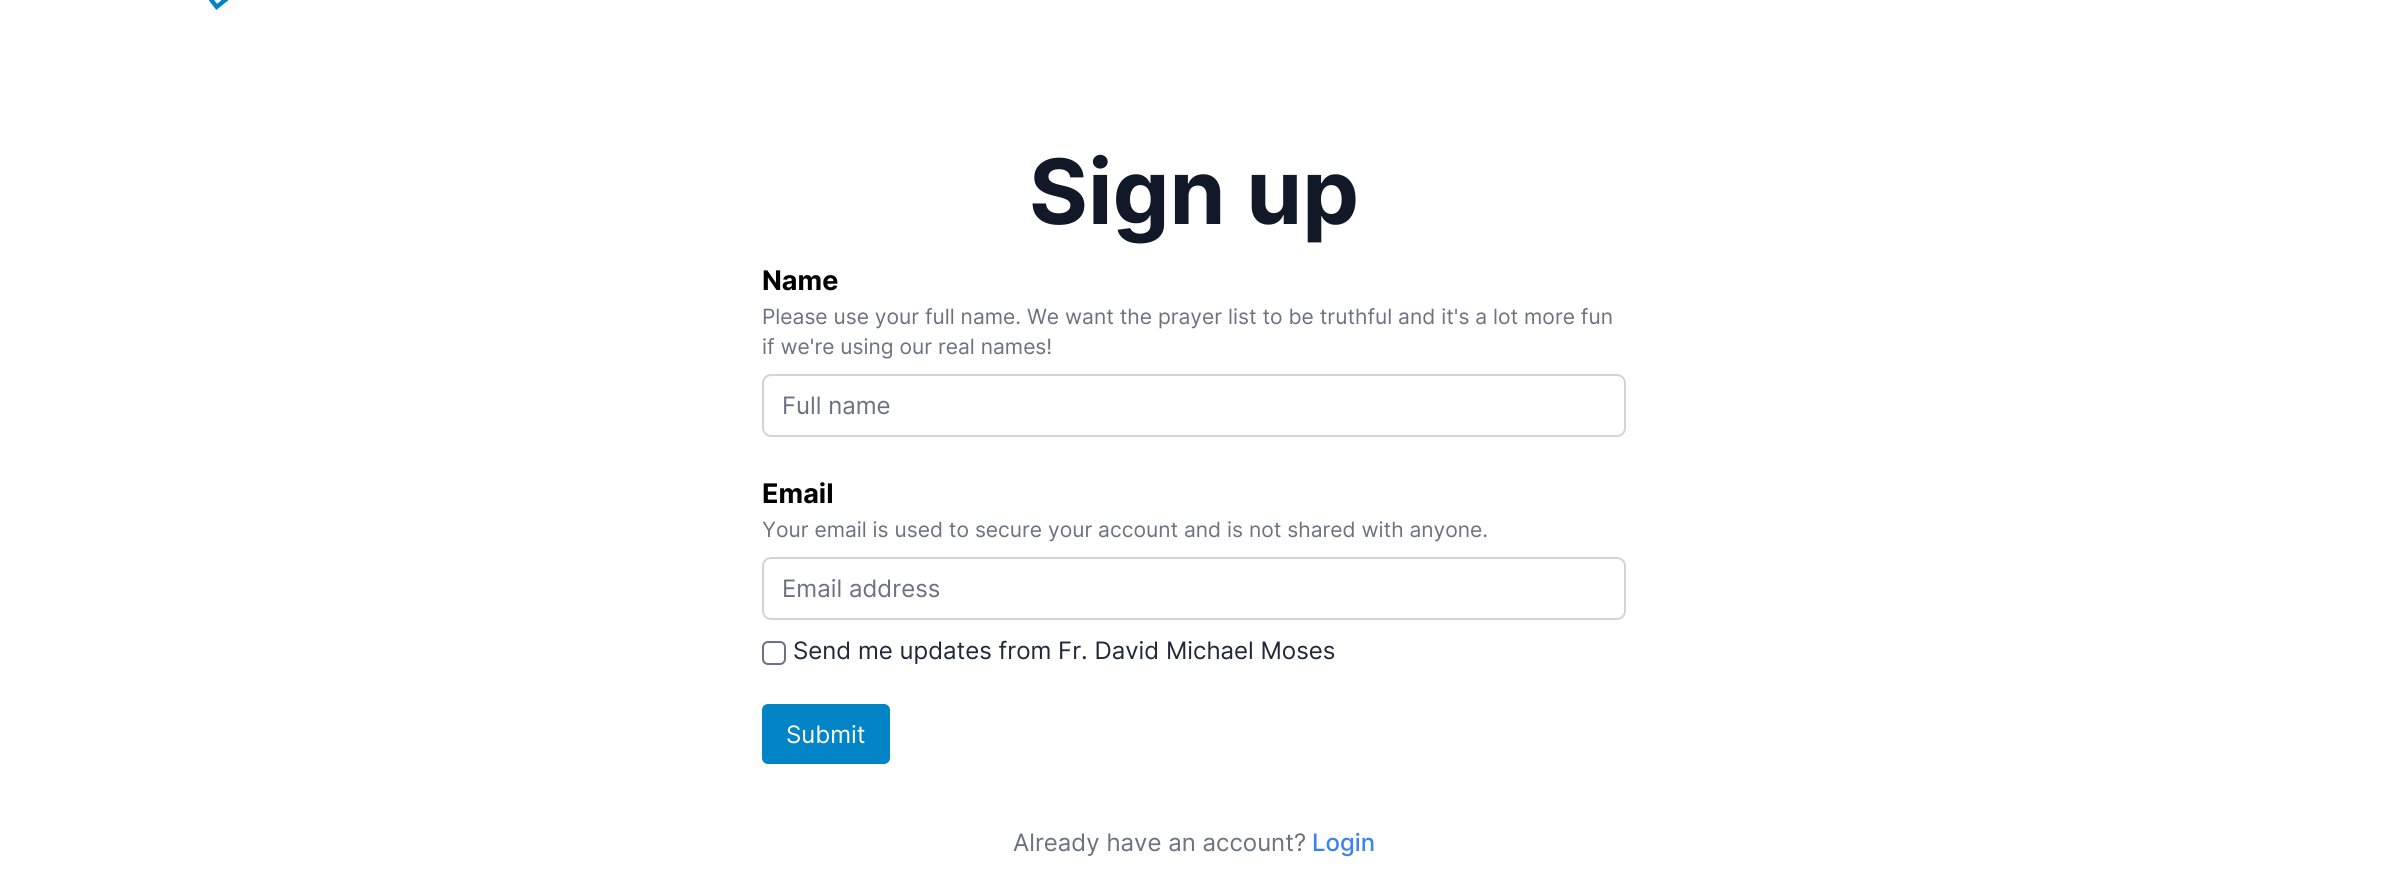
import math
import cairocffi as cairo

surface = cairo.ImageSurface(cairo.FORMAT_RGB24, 2387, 878)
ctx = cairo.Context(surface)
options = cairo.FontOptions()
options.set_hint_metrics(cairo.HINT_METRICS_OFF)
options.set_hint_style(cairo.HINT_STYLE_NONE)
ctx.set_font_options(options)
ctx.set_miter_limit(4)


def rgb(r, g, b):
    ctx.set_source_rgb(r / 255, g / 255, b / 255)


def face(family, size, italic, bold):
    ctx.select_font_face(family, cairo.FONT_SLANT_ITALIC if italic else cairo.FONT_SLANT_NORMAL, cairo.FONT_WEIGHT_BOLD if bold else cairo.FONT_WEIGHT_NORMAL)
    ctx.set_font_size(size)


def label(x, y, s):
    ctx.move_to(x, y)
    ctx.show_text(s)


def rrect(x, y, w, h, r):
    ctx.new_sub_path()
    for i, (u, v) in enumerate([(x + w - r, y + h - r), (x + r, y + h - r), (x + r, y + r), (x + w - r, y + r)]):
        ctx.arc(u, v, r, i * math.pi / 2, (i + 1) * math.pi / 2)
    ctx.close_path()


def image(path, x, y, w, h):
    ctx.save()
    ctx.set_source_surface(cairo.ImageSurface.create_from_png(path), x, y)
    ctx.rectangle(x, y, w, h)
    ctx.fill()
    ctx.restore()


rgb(255, 255, 255)
ctx.paint()
image('image0.png', 209, 0, 20, 10)
face('Inter', 90, 0, 1)
rgb(17, 24, 39)
label(1029, 224, 'Sign up')
face('Inter', 27, 0, 1)
rgb(0, 0, 0)
label(762, 290, 'Name')
face('Inter', 21, 0, 0)
rgb(107, 114, 128)
label(762, 324, 'Please use your full name. We want the prayer list to be truthful and it\'s a lot more fun')
label(762, 354, 'if we\'re using our real names!')
rrect(763, 375, 862, 61, 8)
rgb(209, 213, 219)
ctx.stroke()
face('Inter', 24, 0, 0)
rgb(107, 114, 128)
label(782, 414, 'Full name')
face('Inter', 27, 0, 1)
rgb(0, 0, 0)
label(762, 503, 'Email')
face('Inter', 21, 0, 0)
rgb(107, 114, 128)
label(762, 537, 'Your email is used to secure your account and is not shared with anyone.')
rrect(763, 558, 862, 61, 8)
rgb(209, 213, 219)
ctx.stroke()
face('Inter', 24, 0, 0)
rgb(107, 114, 128)
label(782, 597, 'Email address')
rrect(763, 642, 22, 22, 5)
ctx.stroke()
rgb(31, 41, 55)
label(793, 659, 'Send me updates from Fr. David Michael Moses')
rgb(2, 132, 199)
rrect(762, 704, 128, 60, 6)
ctx.fill()
rgb(255, 255, 255)
label(786, 743, 'Submit')
rgb(107, 114, 128)
label(1013, 851, 'Already have an account?')
face('Inter Medium', 24, 0, 0)
rgb(59, 130, 246)
label(1312, 851, 'Login')
surface.write_to_png('render.png')
